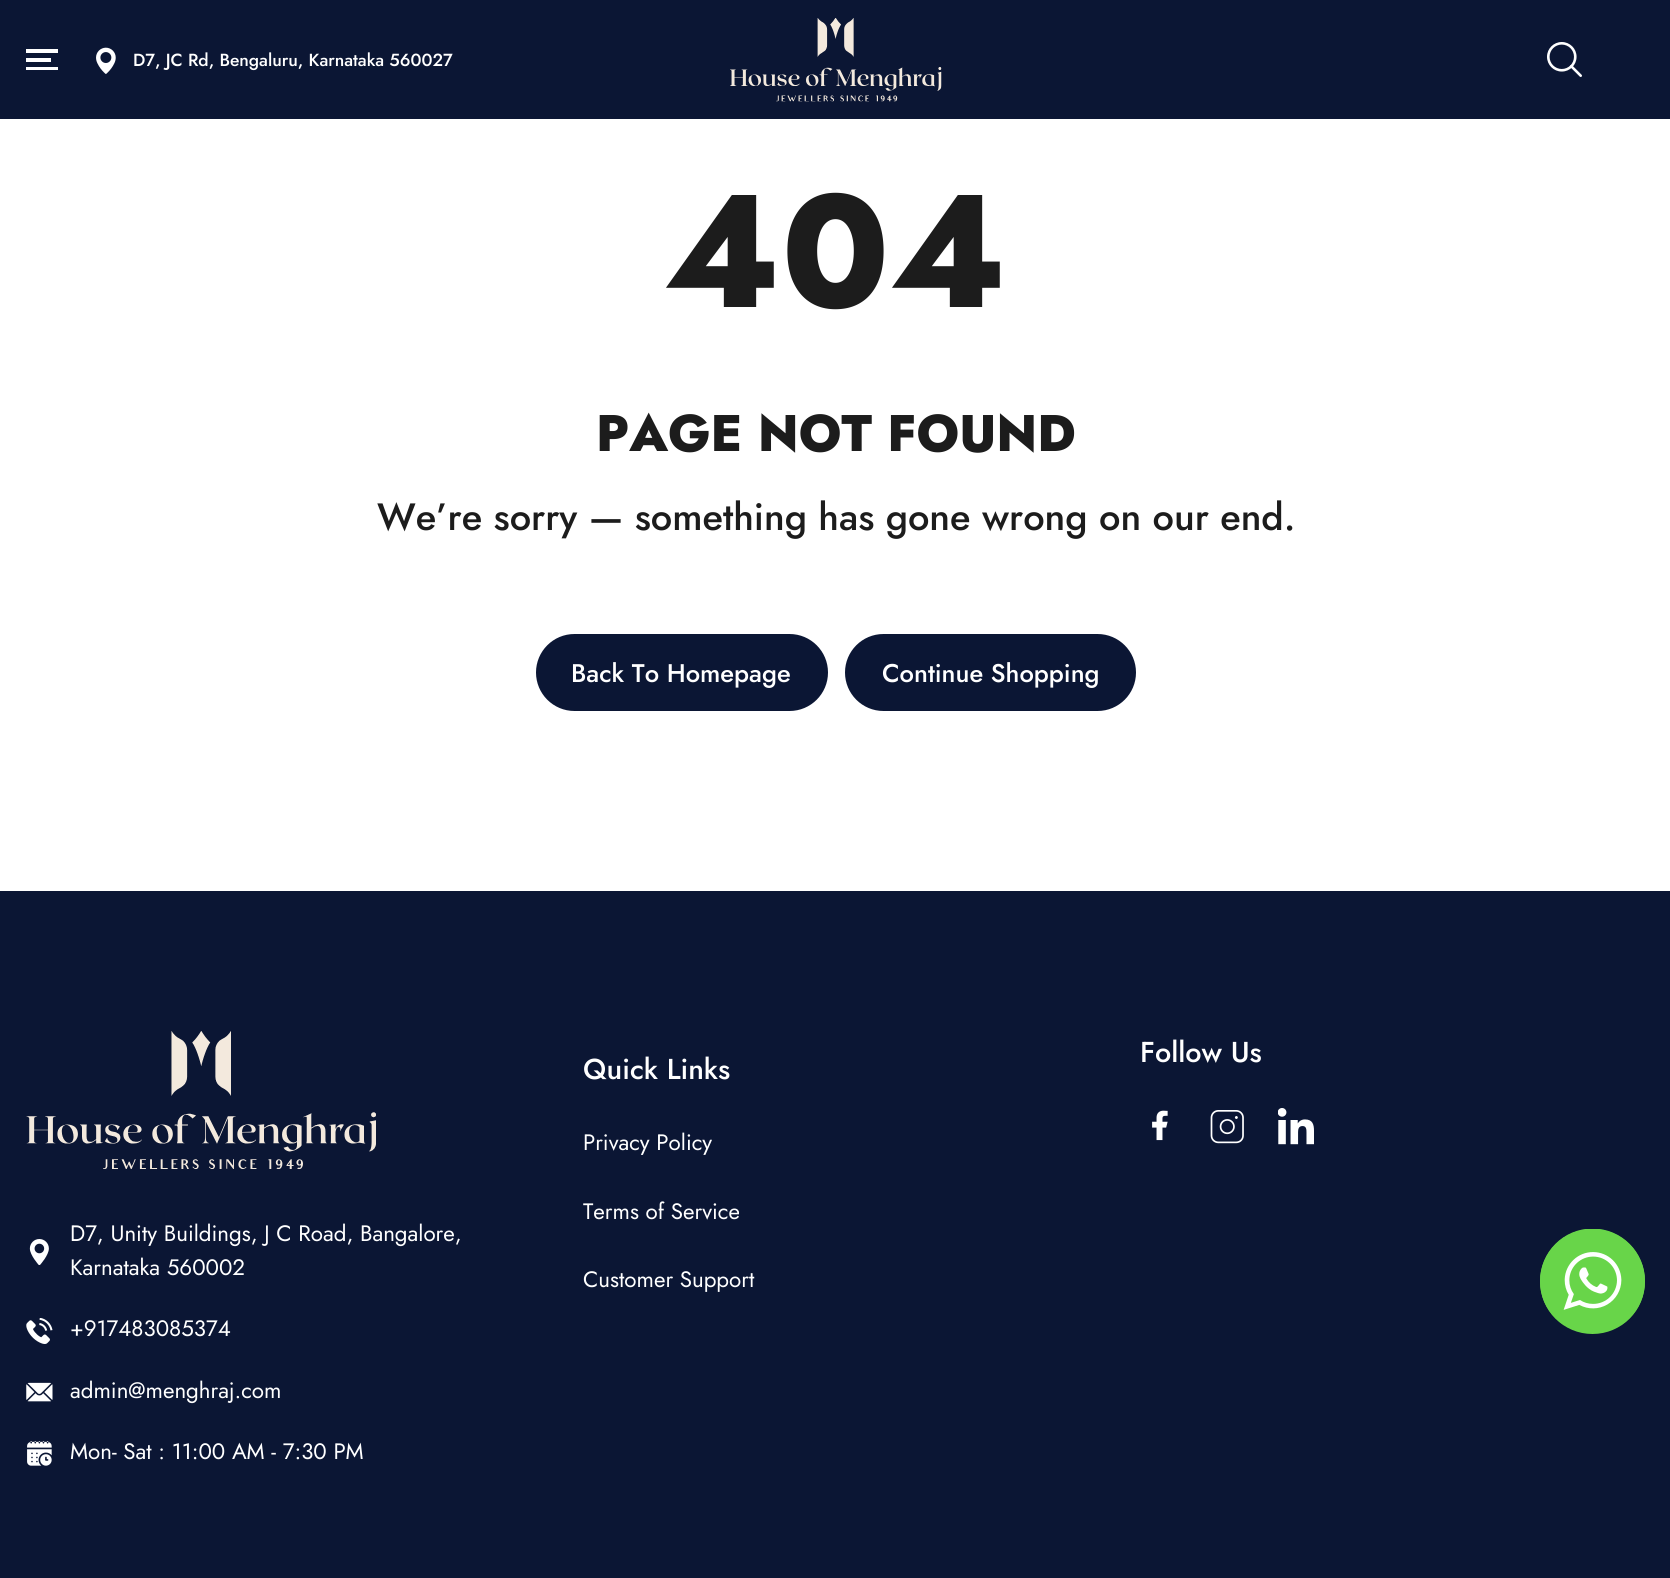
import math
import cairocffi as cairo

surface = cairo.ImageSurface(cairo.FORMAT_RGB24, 1670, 1578)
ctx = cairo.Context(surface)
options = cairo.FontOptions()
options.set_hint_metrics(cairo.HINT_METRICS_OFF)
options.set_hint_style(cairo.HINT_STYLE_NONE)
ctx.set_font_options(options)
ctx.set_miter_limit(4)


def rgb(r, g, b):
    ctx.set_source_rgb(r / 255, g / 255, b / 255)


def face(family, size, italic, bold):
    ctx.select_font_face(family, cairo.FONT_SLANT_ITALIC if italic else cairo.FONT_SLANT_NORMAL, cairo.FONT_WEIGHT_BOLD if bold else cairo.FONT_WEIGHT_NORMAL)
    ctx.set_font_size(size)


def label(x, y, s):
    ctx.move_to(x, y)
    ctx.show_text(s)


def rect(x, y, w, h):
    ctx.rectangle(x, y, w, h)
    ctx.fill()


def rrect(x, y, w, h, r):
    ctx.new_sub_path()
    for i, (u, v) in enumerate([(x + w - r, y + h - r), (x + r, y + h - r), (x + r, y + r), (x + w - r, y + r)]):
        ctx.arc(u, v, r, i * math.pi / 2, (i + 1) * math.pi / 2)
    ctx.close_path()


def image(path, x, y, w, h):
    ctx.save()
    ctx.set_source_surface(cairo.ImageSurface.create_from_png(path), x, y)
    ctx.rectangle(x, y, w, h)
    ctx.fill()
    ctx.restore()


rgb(255, 255, 255)
ctx.paint()
rgb(11, 22, 52)
rect(0, 0, 1670, 119)
rgb(255, 255, 255)
rect(26, 58, 25, 4)
rect(26, 49, 32, 4)
rect(26, 67, 32, 3)
image('image0.png', 96, 47, 20, 27)
face('Jost Medium', 17.5, 0, 0)
label(133, 66, 'D7, JC Rd, Bengaluru, Karnataka 560027')
image('image1.png', 730, 18, 212, 84)
image('image2.png', 1547, 42, 35, 35)
face('Jost ExtraBold', 160, 0, 0)
rgb(28, 28, 28)
label(664, 307, '404')
face('Jost ExtraBold', 51.4, 0, 0)
label(596, 451, 'PAGE NOT FOUND')
face('Jost Medium', 38, 0, 0)
label(377, 530, 'We’re sorry — something has gone wrong on our end.')
rgb(11, 22, 52)
rrect(537, 635, 290, 75, 37.5)
ctx.fill_preserve()
ctx.stroke()
face('Jost Medium', 25.5, 0, 0)
rgb(255, 255, 255)
label(571, 682, 'Back To Homepage')
rgb(11, 22, 52)
rrect(846, 635, 289, 75, 37.5)
ctx.fill_preserve()
ctx.stroke()
rgb(255, 255, 255)
label(882, 682, 'Continue Shopping')
rgb(11, 22, 52)
rect(0, 891, 1670, 687)
face('Jost Medium', 28.75, 0, 0)
rgb(255, 255, 255)
label(1140, 1062, 'Follow Us')
image('image3.png', 1152, 1110, 16, 31)
image('image4.png', 1210, 1110, 34, 34)
image('image5.png', 1278, 1108, 36, 37)
label(583, 1079, 'Quick Links')
face('Jost', 22.3, 0, 0)
label(583, 1150, 'Privacy Policy')
label(583, 1219, 'Terms of Service')
label(583, 1287, 'Customer Support')
image('image6.png', 26, 1031, 350, 138)
image('image7.png', 29, 1239, 20, 26)
label(70, 1241, 'D7, Unity Buildings, J C Road, Bangalore,')
label(70, 1275, 'Karnataka 560002')
image('image8.png', 26, 1318, 27, 26)
label(70, 1336, '+917483085374')
image('image9.png', 26, 1382, 27, 20)
label(70, 1398, 'admin@menghraj.com')
image('image10.png', 27, 1441, 25, 25)
label(70, 1459, 'Mon- Sat : 11:00 AM - 7:30 PM')
rgb(104, 213, 73)
ctx.new_path()
ctx.arc(1592.5, 1281.5, 52.5, 0, 2 * math.pi)
ctx.fill()
image('image11.png', 1540, 1229, 105, 96)
surface.write_to_png('render.png')
